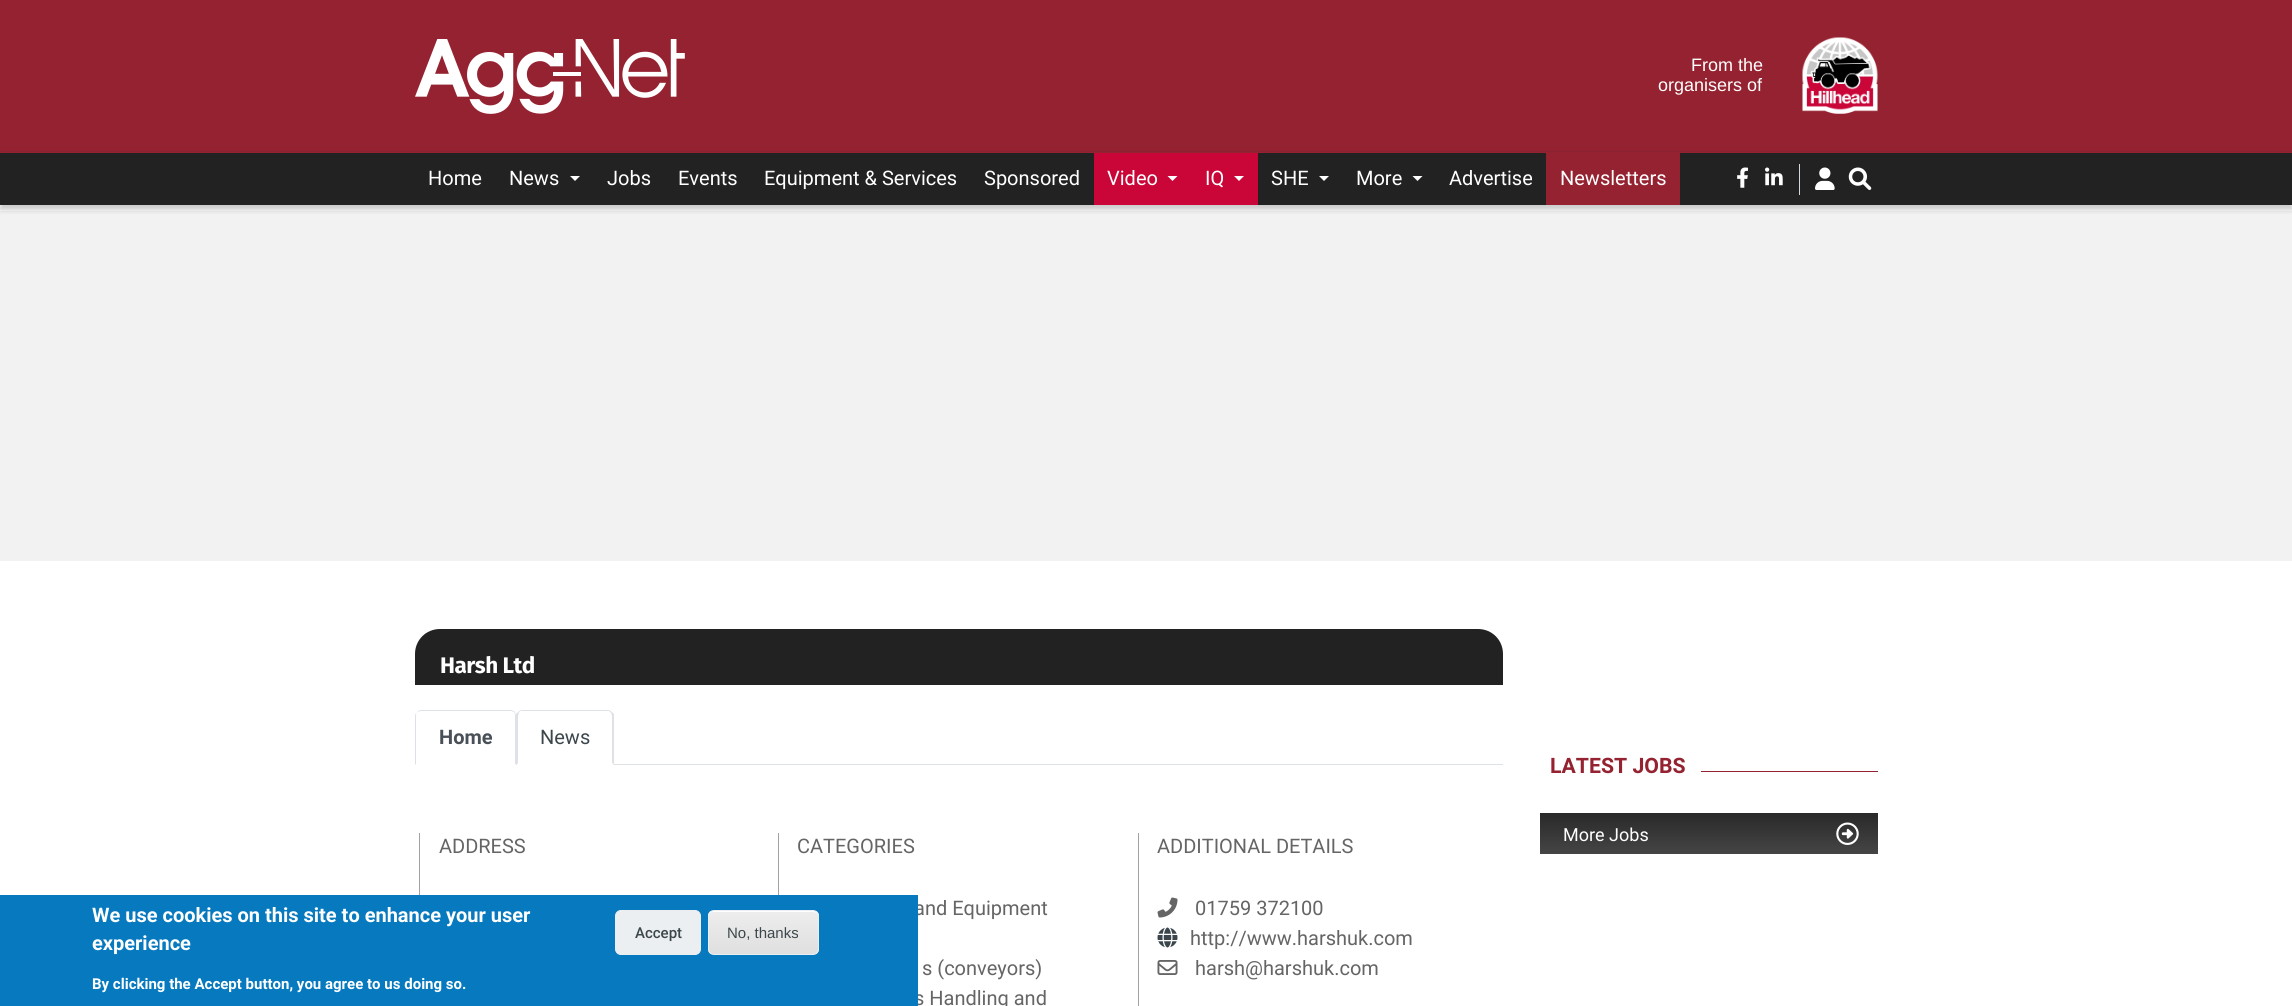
import math
import cairocffi as cairo

surface = cairo.ImageSurface(cairo.FORMAT_RGB24, 2292, 1006)
ctx = cairo.Context(surface)
options = cairo.FontOptions()
options.set_hint_metrics(cairo.HINT_METRICS_OFF)
options.set_hint_style(cairo.HINT_STYLE_NONE)
ctx.set_font_options(options)
ctx.set_miter_limit(4)


def rgb(r, g, b):
    ctx.set_source_rgb(r / 255, g / 255, b / 255)


def face(family, size, italic, bold):
    ctx.select_font_face(family, cairo.FONT_SLANT_ITALIC if italic else cairo.FONT_SLANT_NORMAL, cairo.FONT_WEIGHT_BOLD if bold else cairo.FONT_WEIGHT_NORMAL)
    ctx.set_font_size(size)


def label(x, y, s):
    ctx.move_to(x, y)
    ctx.show_text(s)


def tracked(x, y, s, letter, word):
    ctx.move_to(x, y)
    for ch in s:
        ctx.show_text(ch)
        ctx.rel_move_to(letter + word * (ch == ' '), 0)


def rect(x, y, w, h):
    ctx.rectangle(x, y, w, h)
    ctx.fill()


def rrect(x, y, w, h, r):
    ctx.new_sub_path()
    for i, (u, v) in enumerate([(x + w - r, y + h - r), (x + r, y + h - r), (x + r, y + r), (x + w - r, y + r)]):
        ctx.arc(u, v, r, i * math.pi / 2, (i + 1) * math.pi / 2)
    ctx.close_path()


def soft_shadow(x, y, w, h, r, blur, alpha):
    ctx.push_group_with_content(cairo.CONTENT_ALPHA)
    ctx.set_operator(cairo.OPERATOR_SOURCE)
    for i in range(15, -16, -2):
        e = blur * i / 6
        if min(w, h) + 2 * e > 0:
            ctx.set_source_rgba(0, 0, 0, alpha * math.erfc((i - 1) / 8.5) / 2)
            rrect(x - e, y - e, w + 2 * e, h + 2 * e, max(0, min(r + e + blur * .6, min(w, h) / 2 + e)))
            ctx.fill()
    ctx.mask(ctx.pop_group())


def image(path, x, y, w, h):
    ctx.save()
    ctx.set_source_surface(cairo.ImageSurface.create_from_png(path), x, y)
    ctx.rectangle(x, y, w, h)
    ctx.fill()
    ctx.restore()


rgb(255, 255, 255)
ctx.paint()
rgb(149, 34, 48)
rect(0, 0, 2292, 153)
rgb(136, 36, 49)
rect(0, 151, 2292, 1)
image('image0.png', 415, 39, 270, 75)
face('Liberation Sans', 18, 0, 0)
rgb(255, 255, 255)
label(1691, 71, 'From the')
label(1658, 91, 'organisers of')
image('image1.png', 1802, 37, 76, 77)
rgb(242, 242, 242)
rect(0, 211, 2292, 350)
rgb(0, 0, 0)
soft_shadow(0, 158, 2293, 52, 0, 2.5, 0.2)
rgb(34, 34, 34)
rect(0, 153, 2292, 52)
face('Roboto', 20, 0, 0)
rgb(255, 255, 255)
label(428, 185, 'Home')
label(509, 185, 'News')
ctx.new_path()
ctx.move_to(570, 176)
ctx.line_to(580, 176)
ctx.line_to(575, 181)
ctx.close_path()
ctx.fill()
label(607, 185, 'Jobs')
label(678, 185, 'Events')
label(764, 185, 'Equipment & Services')
label(984, 185, 'Sponsored')
rgb(202, 5, 56)
rect(1094, 153, 164, 52)
rgb(255, 255, 255)
label(1107, 185, 'Video')
ctx.new_path()
ctx.move_to(1167.5, 176)
ctx.line_to(1177.5, 176)
ctx.line_to(1172.5, 181)
ctx.close_path()
ctx.fill()
label(1205, 185, 'IQ')
ctx.new_path()
ctx.move_to(1234, 176)
ctx.line_to(1244, 176)
ctx.line_to(1239, 181)
ctx.close_path()
ctx.fill()
label(1271, 185, 'SHE')
ctx.new_path()
ctx.move_to(1319, 176)
ctx.line_to(1329, 176)
ctx.line_to(1324, 181)
ctx.close_path()
ctx.fill()
label(1356, 185, 'More')
ctx.new_path()
ctx.move_to(1412.5, 176)
ctx.line_to(1422.5, 176)
ctx.line_to(1417.5, 181)
ctx.close_path()
ctx.fill()
label(1449, 185, 'Advertise')
rgb(149, 34, 48)
rect(1546, 153, 134, 52)
rgb(255, 255, 255)
label(1560, 185, 'Newsletters')
rgb(207, 216, 220)
rect(1799, 164, 1, 31)
image('image2.png', 1737, 167, 11, 21)
image('image3.png', 1765, 167, 18, 19)
image('image4.png', 1815, 167, 20, 23)
image('image5.png', 1848, 167, 24, 23)
rgb(34, 34, 34)
ctx.new_path()
ctx.move_to(440, 629)
ctx.line_to(1478, 629)
ctx.curve_to(1492, 629, 1503, 640, 1503, 654)
ctx.line_to(1503, 685)
ctx.line_to(415, 685)
ctx.line_to(415, 654)
ctx.curve_to(415, 640, 426, 629, 440, 629)
ctx.close_path()
ctx.fill()
face('Fira Sans', 22.5, 0, 1)
rgb(255, 255, 255)
tracked(440, 673, 'Harsh Ltd', -0.5, 0)
rgb(222, 226, 230)
rect(516, 764, 987, 1)
ctx.new_path()
ctx.move_to(421, 710)
ctx.curve_to(420, 710, 418, 711, 417, 712)
ctx.curve_to(418, 712, 420, 711, 421, 711)
ctx.line_to(511, 711)
ctx.curve_to(512, 711, 513, 712, 514, 712)
ctx.line_to(515, 712)
ctx.curve_to(514, 711, 512, 710, 511, 710)
ctx.close_path()
ctx.fill()
ctx.new_path()
ctx.move_to(515, 712)
ctx.curve_to(515, 713, 516, 714, 516, 716)
ctx.line_to(516, 765)
ctx.line_to(515, 764)
ctx.line_to(515, 716)
ctx.curve_to(515, 715, 515, 713, 514, 712)
ctx.close_path()
ctx.fill()
rgb(255, 255, 255)
ctx.new_path()
ctx.move_to(516, 765)
ctx.line_to(515, 764)
ctx.line_to(416, 764)
ctx.line_to(415, 765)
ctx.close_path()
ctx.fill()
rgb(222, 226, 230)
ctx.new_path()
ctx.move_to(415, 765)
ctx.line_to(416, 764)
ctx.line_to(416, 716)
ctx.curve_to(416, 714, 416, 713, 417, 712)
ctx.curve_to(416, 713, 415, 714, 415, 716)
ctx.close_path()
ctx.fill()
face('Roboto', 20, 0, 1)
rgb(73, 80, 87)
label(439, 744, 'Home')
rgb(222, 226, 230)
ctx.new_path()
ctx.move_to(522, 710)
ctx.curve_to(521, 710, 519, 711, 518, 712)
ctx.line_to(519, 713)
ctx.curve_to(519, 712, 520, 711, 521, 711)
ctx.line_to(609, 711)
ctx.line_to(611, 713)
ctx.line_to(612, 712)
ctx.curve_to(611, 711, 609, 710, 608, 710)
ctx.close_path()
ctx.fill()
ctx.new_path()
ctx.move_to(614, 714)
ctx.line_to(614, 765)
ctx.line_to(612, 763)
ctx.line_to(612, 716)
ctx.line_to(611, 713)
ctx.line_to(612, 712)
ctx.close_path()
ctx.fill()
rgb(255, 255, 255)
ctx.new_path()
ctx.move_to(614, 765)
ctx.line_to(612, 763)
ctx.line_to(612, 764)
ctx.line_to(518, 764)
ctx.line_to(518, 763)
ctx.line_to(516, 765)
ctx.close_path()
ctx.fill()
rgb(222, 226, 230)
ctx.new_path()
ctx.move_to(516, 765)
ctx.line_to(516, 714)
ctx.line_to(518, 712)
ctx.line_to(519, 713)
ctx.line_to(518, 716)
ctx.line_to(518, 763)
ctx.close_path()
ctx.fill()
face('Roboto', 20, 0, 0)
rgb(60, 71, 76)
label(540, 744, 'News')
rgb(162, 162, 162)
rect(778, 833, 1, 62)
rect(419, 833, 1, 62)
rgb(101, 101, 101)
label(439, 853, 'ADDRESS')
rgb(162, 162, 162)
rect(1138, 833, 1, 173)
rgb(101, 101, 101)
label(797, 853, 'CATEGORIES')
label(914, 915, 'and Equipment')
label(922, 975, 's (conveyors)')
label(914, 1005, 's Handling and')
label(1157, 853, 'ADDITIONAL DETAILS')
image('image6.png', 1157, 897, 21, 21)
label(1195, 915, '01759 372100')
image('image7.png', 1157, 927, 21, 21)
label(1190, 945, 'http://www.harshuk.com')
image('image8.png', 1157, 960, 21, 15)
label(1195, 975, 'harsh@harshuk.com')
face('Roboto', 21.25, 0, 1)
rgb(149, 34, 48)
label(1550, 773, 'LATEST JOBS')
rect(1701, 771, 177, 1)
gradient = cairo.LinearGradient(1709, 813, 1709, 854)
gradient.add_color_stop_rgba(0, 0.161, 0.161, 0.161, 1)
gradient.add_color_stop_rgba(1, 0.271, 0.271, 0.271, 1)
ctx.set_source(gradient)
rect(1540, 813, 338, 41)
face('Roboto', 18, 0, 0)
rgb(255, 255, 255)
label(1563, 841, 'More Jobs')
image('image9.png', 1836, 822, 23, 23)
rgb(7, 121, 191)
rect(0, 895, 918, 111)
face('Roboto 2', 20, 0, 1)
rgb(255, 255, 255)
label(92, 922, 'We use cookies on this site to enhance your user')
label(92, 950, 'experience')
face('Roboto', 15, 0, 1)
label(92, 989, 'By clicking the Accept button, you agree to us doing so.')
rgb(236, 239, 241)
rrect(615.5, 910.5, 85, 44, 5.5)
ctx.fill_preserve()
ctx.set_line_width(1)
ctx.stroke()
face('Roboto Medium', 15, 0, 0)
rgb(60, 71, 76)
label(635, 938, 'Accept')
ctx.save()
rrect(708, 910, 111, 45, 6)
ctx.clip()
gradient = cairo.LinearGradient(763, 911, 763, 954)
gradient.add_color_stop_rgba(0.05, 0.929, 0.929, 0.929, 1)
gradient.add_color_stop_rgba(1, 0.875, 0.875, 0.875, 1)
ctx.set_source(gradient)
rect(708, 911, 111, 43)
ctx.restore()
rgb(255, 255, 255)
ctx.new_path()
ctx.move_to(713, 912)
ctx.line_to(813, 912)
ctx.curve_to(816, 912, 818, 914, 818, 917)
ctx.curve_to(818, 907, 802, 911, 796, 911)
ctx.line_to(730, 911)
ctx.curve_to(725, 911, 709, 907, 709, 917)
ctx.curve_to(709, 914, 711, 912, 713, 912)
ctx.close_path()
ctx.fill()
rrect(708.5, 910.5, 110, 44, 5.5)
rgb(236, 239, 241)
ctx.stroke()
face('Liberation Sans', 15, 0, 0)
rgb(60, 71, 76)
label(727, 938, 'No, thanks')
surface.write_to_png('render.png')
